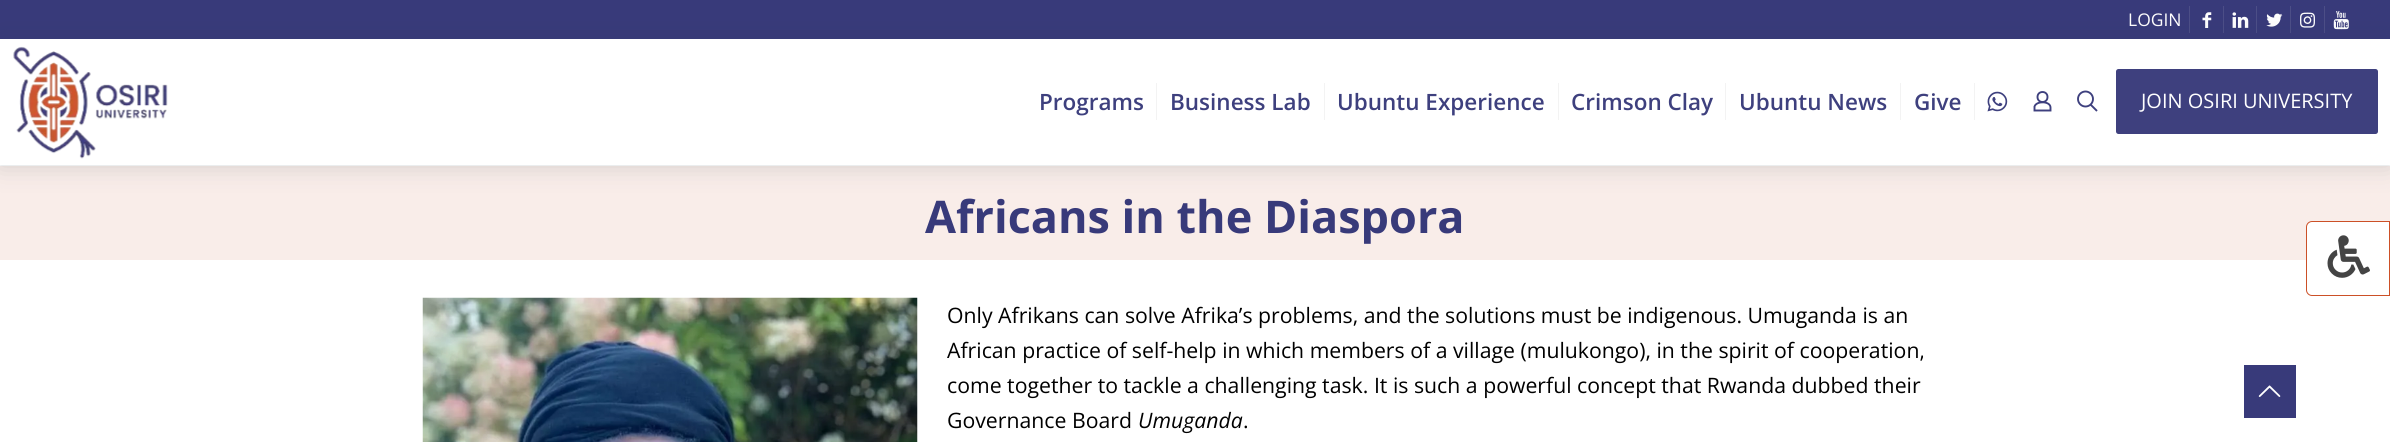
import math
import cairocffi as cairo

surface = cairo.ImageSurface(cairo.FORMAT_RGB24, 2390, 442)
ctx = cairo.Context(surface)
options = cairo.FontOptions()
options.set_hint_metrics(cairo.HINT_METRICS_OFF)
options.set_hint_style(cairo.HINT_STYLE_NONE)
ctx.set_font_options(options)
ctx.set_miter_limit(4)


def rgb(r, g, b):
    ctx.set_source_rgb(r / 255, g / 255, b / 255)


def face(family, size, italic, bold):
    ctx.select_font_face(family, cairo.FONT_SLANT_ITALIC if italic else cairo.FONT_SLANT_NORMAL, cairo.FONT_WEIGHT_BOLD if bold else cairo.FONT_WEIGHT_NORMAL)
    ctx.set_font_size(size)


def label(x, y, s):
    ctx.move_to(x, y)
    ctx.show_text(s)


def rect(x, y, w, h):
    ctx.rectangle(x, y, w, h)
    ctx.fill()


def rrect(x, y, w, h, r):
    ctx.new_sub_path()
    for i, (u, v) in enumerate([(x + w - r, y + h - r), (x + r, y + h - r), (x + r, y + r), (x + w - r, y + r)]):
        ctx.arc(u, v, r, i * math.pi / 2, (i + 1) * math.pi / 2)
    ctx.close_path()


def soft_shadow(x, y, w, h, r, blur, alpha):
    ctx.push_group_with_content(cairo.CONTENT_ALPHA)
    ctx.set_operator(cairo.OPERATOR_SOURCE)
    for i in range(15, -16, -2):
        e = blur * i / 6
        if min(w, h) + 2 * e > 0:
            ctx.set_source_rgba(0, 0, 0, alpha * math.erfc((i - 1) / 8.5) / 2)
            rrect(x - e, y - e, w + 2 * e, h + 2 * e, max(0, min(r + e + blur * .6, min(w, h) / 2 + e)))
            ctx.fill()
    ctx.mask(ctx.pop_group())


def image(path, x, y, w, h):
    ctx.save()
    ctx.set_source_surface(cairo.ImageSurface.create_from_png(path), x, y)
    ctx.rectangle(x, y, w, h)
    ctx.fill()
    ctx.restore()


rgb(255, 255, 255)
ctx.paint()
rgb(56, 58, 122)
rect(0, 0, 2390, 39)
rgb(76, 78, 135)
rect(2189, 6, 1, 27)
face('Open Sans', 17.5, 0, 0)
rgb(255, 255, 255)
label(2128, 26, 'LOGIN')
rgb(76, 78, 135)
rect(2223, 6, 1, 27)
image('image0.png', 2202, 12, 10, 16)
rect(2256, 6, 1, 27)
image('image1.png', 2232, 12, 17, 16)
rect(2290, 6, 1, 27)
image('image2.png', 2266, 13, 17, 14)
rect(2324, 6, 1, 27)
image('image3.png', 2300, 12, 15, 16)
image('image4.png', 2333, 11, 16, 19)
rgb(249, 237, 233)
rect(0, 166, 2390, 94)
ctx.save()
ctx.set_fill_rule(cairo.FILL_RULE_EVEN_ODD)
ctx.new_path()
ctx.move_to(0, 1)
ctx.line_to(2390, 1)
ctx.line_to(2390, 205)
ctx.line_to(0, 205)
ctx.close_path()
ctx.move_to(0, 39)
ctx.line_to(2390, 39)
ctx.line_to(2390, 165)
ctx.line_to(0, 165)
ctx.close_path()
ctx.clip()
rgb(46, 61, 73)
soft_shadow(0, 40, 2390, 126, 0, 12.5, 0.19)
ctx.restore()
image('image5.png', 13, 46, 155, 113)
rgb(243, 243, 243)
rect(1156, 83, 1, 37)
face('Open Sans SemiBold', 22.5, 0, 0)
rgb(62, 64, 126)
label(1039, 110, 'Programs')
rgb(243, 243, 243)
rect(1324, 83, 1, 37)
rgb(62, 64, 126)
label(1170, 110, 'Business Lab')
rgb(243, 243, 243)
rect(1558, 83, 1, 37)
rgb(62, 64, 126)
label(1337, 110, 'Ubuntu Experience')
rgb(243, 243, 243)
rect(1725, 83, 1, 37)
rgb(62, 64, 126)
label(1571, 110, 'Crimson Clay')
rgb(243, 243, 243)
rect(1900, 83, 1, 37)
rgb(62, 64, 126)
label(1739, 110, 'Ubuntu News')
rgb(243, 243, 243)
rect(1974, 83, 1, 37)
rgb(62, 64, 126)
label(1914, 110, 'Give')
image('image6.png', 1987, 91, 21, 21)
ctx.arc(2042.5, 97, 5, 0, 2 * math.pi)
ctx.set_line_width(1.9)
ctx.stroke()
ctx.new_path()
ctx.move_to(2050.5, 107.5)
ctx.line_to(2050.5, 110.5)
ctx.line_to(2034.5, 110.5)
ctx.line_to(2034.5, 106.5)
ctx.curve_to(2036.5, 100.5, 2050.5, 101, 2050.5, 107.5)
ctx.close_path()
ctx.stroke()
ctx.arc(2085.5, 99, 7.5, 0, 2 * math.pi)
ctx.stroke()
ctx.new_path()
ctx.move_to(2090.5, 104.5)
ctx.line_to(2097, 111)
ctx.stroke()
rrect(2116, 69, 262, 65, 2.5)
ctx.fill()
face('Open Sans', 20, 0, 0)
rgb(255, 255, 255)
label(2141, 108, 'JOIN OSIRI UNIVERSITY')
face('Open Sans', 45, 0, 1)
rgb(56, 58, 122)
label(925, 233, 'Africans in the Diaspora')
image('image7.png', 422, 297, 496, 145)
face('Open Sans', 21.25, 0, 0)
rgb(0, 0, 0)
label(947, 323, 'Only Afrikans can solve Afrika’s problems, and the solutions must be indigenous. Umuganda is an')
label(947, 358, 'African practice of self-help in which members of a village (mulukongo), in the spirit of cooperation,')
label(947, 393, 'come together to tackle a challenging task. It is such a powerful concept that Rwanda dubbed their')
label(947, 428, 'Governance Board')
face('Open Sans', 21.25, 1, 0)
label(1138, 428, 'Umuganda')
face('Open Sans', 21.25, 0, 0)
label(1243, 428, '.')
rgb(255, 255, 255)
ctx.new_path()
ctx.move_to(2312, 221.5)
ctx.line_to(2389.5, 221.5)
ctx.line_to(2389.5, 295.5)
ctx.line_to(2312, 295.5)
ctx.curve_to(2309, 295.5, 2306.5, 293, 2306.5, 290)
ctx.line_to(2306.5, 227)
ctx.curve_to(2306.5, 224, 2309, 221.5, 2312, 221.5)
ctx.close_path()
ctx.fill_preserve()
rgb(204, 80, 39)
ctx.set_line_width(1)
ctx.stroke()
image('image8.png', 2327, 235, 43, 43)
rgb(56, 58, 122)
rect(2244, 365, 52, 53)
image('image9.png', 2258, 385, 23, 12)
surface.write_to_png('render.png')
